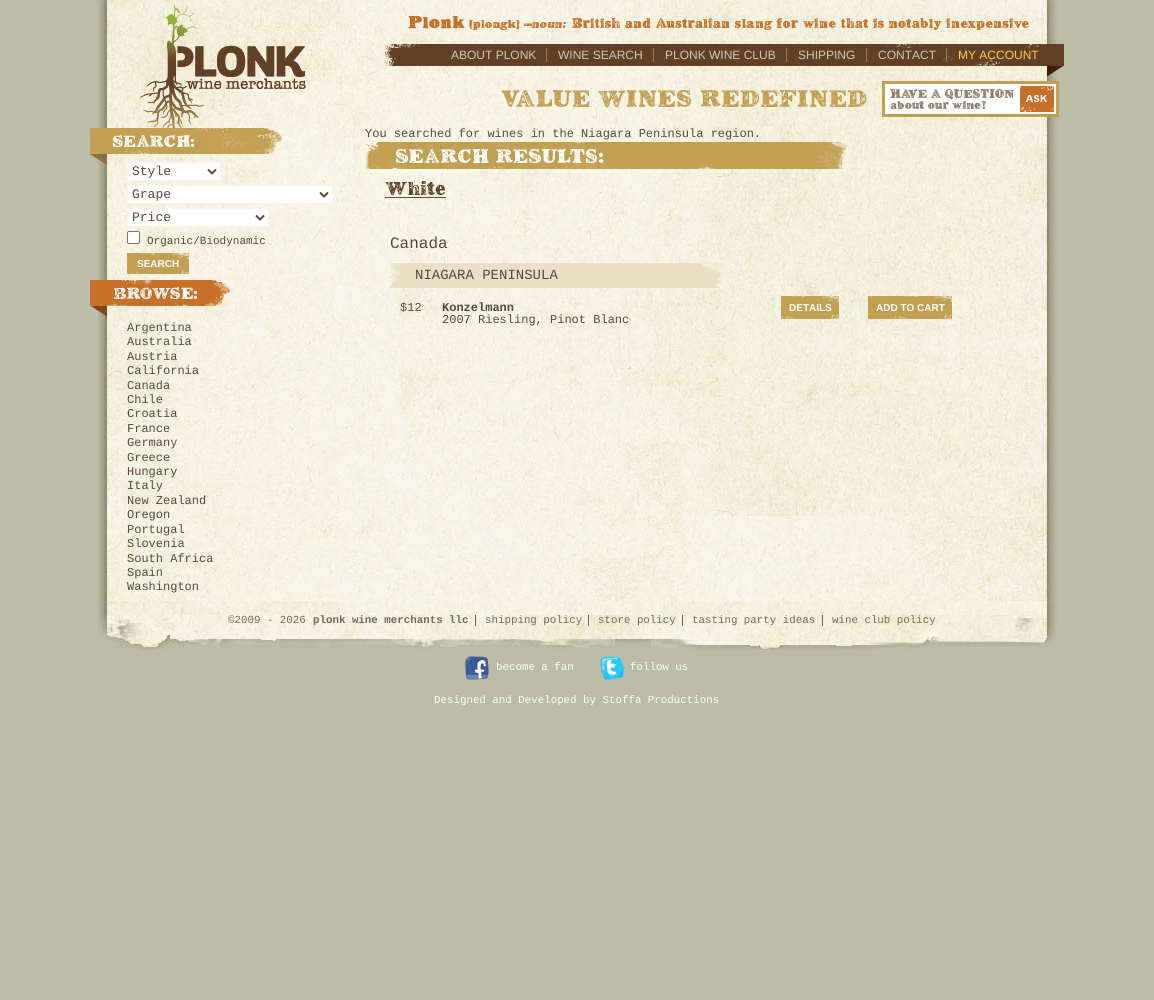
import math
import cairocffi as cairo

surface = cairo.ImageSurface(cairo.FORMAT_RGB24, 1154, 1000)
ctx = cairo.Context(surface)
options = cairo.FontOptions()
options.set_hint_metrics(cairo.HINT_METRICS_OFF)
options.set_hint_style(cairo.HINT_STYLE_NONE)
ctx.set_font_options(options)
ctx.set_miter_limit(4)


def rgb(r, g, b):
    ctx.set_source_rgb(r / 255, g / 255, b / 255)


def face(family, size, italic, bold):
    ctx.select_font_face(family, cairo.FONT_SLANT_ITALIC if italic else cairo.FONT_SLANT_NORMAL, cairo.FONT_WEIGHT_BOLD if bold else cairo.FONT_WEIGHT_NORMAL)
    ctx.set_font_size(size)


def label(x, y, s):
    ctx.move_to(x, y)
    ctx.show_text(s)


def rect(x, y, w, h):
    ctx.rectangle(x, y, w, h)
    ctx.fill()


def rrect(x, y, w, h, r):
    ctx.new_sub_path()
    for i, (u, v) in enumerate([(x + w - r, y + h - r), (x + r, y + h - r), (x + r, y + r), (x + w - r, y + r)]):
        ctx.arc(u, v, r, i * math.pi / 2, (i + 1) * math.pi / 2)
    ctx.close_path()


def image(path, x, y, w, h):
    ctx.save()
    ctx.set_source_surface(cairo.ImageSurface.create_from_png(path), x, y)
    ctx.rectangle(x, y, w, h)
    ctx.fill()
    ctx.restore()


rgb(187, 188, 166)
ctx.paint()
image('image14.png', 98, 615, 959, 35)
rgb(119, 103, 91)
rect(475, 614, 1, 12)
rect(588, 614, 1, 12)
rect(682, 614, 1, 12)
rect(822, 614, 1, 12)
image('image0.png', 98, 0, 959, 615)
image('image1.png', 140, 5, 166, 123)
image('image2.png', 408, 16, 621, 14)
image('image3.png', 385, 34, 679, 42)
face('Liberation Sans', 12, 0, 0)
rgb(207, 201, 180)
label(451, 59, 'ABOUT PLONK')
rgb(148, 128, 104)
rect(546, 48, 1, 14)
rgb(207, 201, 180)
label(558, 59, 'WINE SEARCH')
rgb(148, 128, 104)
rect(653, 48, 1, 14)
rgb(207, 201, 180)
label(665, 59, 'PLONK WINE CLUB')
rgb(148, 128, 104)
rect(786, 48, 1, 14)
rgb(207, 201, 180)
label(798, 59, 'SHIPPING')
rgb(148, 128, 104)
rect(866, 48, 1, 14)
rgb(207, 201, 180)
label(878, 59, 'CONTACT')
rgb(148, 128, 104)
rect(946, 48, 1, 14)
rgb(255, 200, 76)
label(958, 59, 'MY ACCOUNT')
image('image4.png', 501, 90, 366, 18)
image('image5.png', 882, 81, 177, 36)
image('image6.png', 90, 128, 192, 37)
rgb(255, 255, 255)
ctx.rectangle(127.5, 162.5, 93, 18)
ctx.fill_preserve()
rgb(246, 244, 239)
ctx.set_line_width(1)
ctx.stroke()
ctx.new_path()
ctx.move_to(208, 169.5)
ctx.line_to(212, 173.5)
ctx.line_to(216, 169.5)
rgb(90, 73, 60)
ctx.set_line_width(2)
ctx.stroke()
face('Liberation Mono', 13, 0, 0)
label(132, 175, 'Style')
rgb(255, 255, 255)
ctx.rectangle(127.5, 185.5, 205, 18)
ctx.fill_preserve()
rgb(246, 244, 239)
ctx.set_line_width(1)
ctx.stroke()
ctx.new_path()
ctx.move_to(320, 192.5)
ctx.line_to(324, 196.5)
ctx.line_to(328, 192.5)
rgb(90, 73, 60)
ctx.set_line_width(2)
ctx.stroke()
label(132, 198, 'Grape')
rgb(255, 255, 255)
ctx.rectangle(127.5, 208.5, 141, 18)
ctx.fill_preserve()
rgb(246, 244, 239)
ctx.set_line_width(1)
ctx.stroke()
ctx.new_path()
ctx.move_to(256, 215.5)
ctx.line_to(260, 219.5)
ctx.line_to(264, 215.5)
rgb(90, 73, 60)
ctx.set_line_width(2)
ctx.stroke()
label(132, 221, 'Price')
rgb(255, 255, 255)
rrect(127.5, 231.5, 12, 12, 1.5)
ctx.fill_preserve()
rgb(118, 118, 118)
ctx.set_line_width(1)
ctx.stroke()
face('Liberation Mono', 11, 0, 0)
rgb(90, 73, 60)
label(147, 244, 'Organic/Biodynamic')
image('image7.png', 127, 253, 62, 21)
face('Liberation Sans', 10, 0, 1)
rgb(255, 255, 255)
label(137, 267, 'SEARCH')
image('image8.png', 90, 280, 140, 37)
face('Liberation Mono', 12, 0, 0)
rgb(90, 73, 60)
label(127, 331, 'Argentina')
label(127, 345, 'Australia')
label(127, 360, 'Austria')
label(127, 374, 'California')
label(127, 389, 'Canada')
label(127, 403, 'Chile')
label(127, 417, 'Croatia')
label(127, 432, 'France')
label(127, 446, 'Germany')
label(127, 461, 'Greece')
label(127, 475, 'Hungary')
label(127, 489, 'Italy')
label(127, 504, 'New Zealand')
label(127, 518, 'Oregon')
label(127, 533, 'Portugal')
label(127, 547, 'Slovenia')
label(127, 562, 'South Africa')
label(127, 576, 'Spain')
label(127, 590, 'Washington')
label(365, 137, 'You searched for wines in the Niagara Peninsula region.')
image('image9.png', 365, 142, 486, 27)
image('image10.png', 385, 181, 61, 14)
rect(385, 197, 61, 1)
face('Liberation Mono', 16, 0, 0)
label(390, 248, 'Canada')
image('image11.png', 390, 263, 334, 25)
face('Liberation Mono', 14, 0, 0)
label(415, 279, 'NIAGARA PENINSULA')
face('Liberation Mono', 12, 0, 0)
label(400, 311, '$12')
face('Liberation Mono', 12, 0, 1)
label(442, 311, 'Konzelmann')
face('Liberation Mono', 12, 0, 0)
label(442, 323, '2007 Riesling, Pinot Blanc')
image('image12.png', 781, 296, 58, 23)
face('Liberation Sans', 10, 0, 1)
rgb(255, 255, 255)
label(789, 311, 'DETAILS')
image('image13.png', 868, 296, 84, 23)
label(876, 311, 'ADD TO CART')
face('Liberation Mono', 10.8, 0, 0)
rgb(119, 103, 91)
label(228, 623, '©2009 - 2026')
face('Liberation Mono', 10.8, 0, 1)
label(313, 623, 'plonk wine merchants llc')
face('Liberation Mono', 10.8, 0, 0)
label(485, 623, 'shipping policy')
label(598, 623, 'store policy')
label(692, 623, 'tasting party ideas')
label(832, 623, 'wine club policy')
image('image15.png', 465, 656, 24, 24)
rgb(255, 255, 255)
label(496, 670, 'become a fan')
image('image16.png', 600, 656, 24, 24)
label(630, 670, 'follow us')
label(434, 703, 'Designed and Developed by Stoffa Productions')
surface.write_to_png('render.png')
